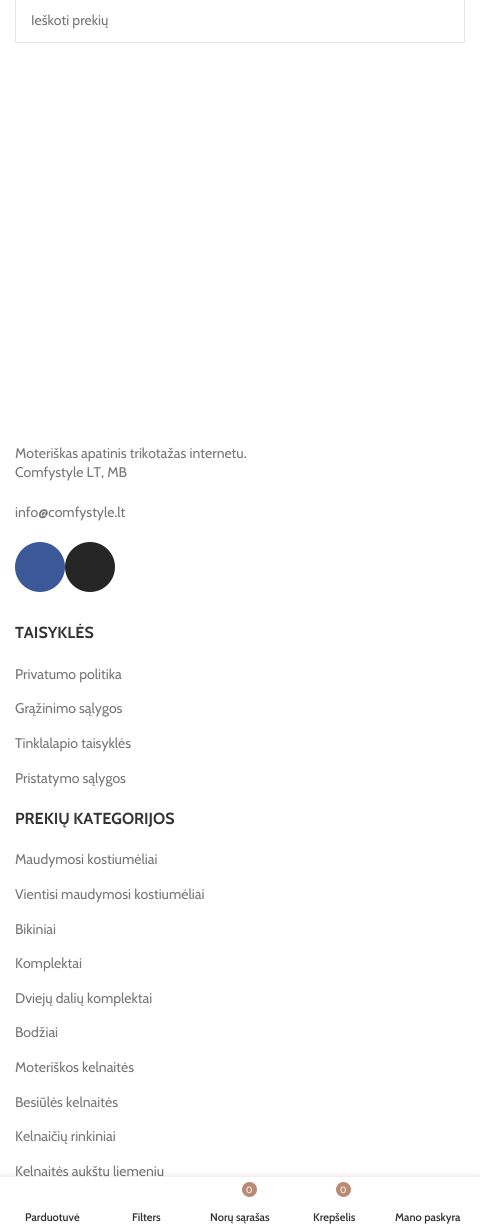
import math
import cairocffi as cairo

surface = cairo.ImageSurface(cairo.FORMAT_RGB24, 480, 1232)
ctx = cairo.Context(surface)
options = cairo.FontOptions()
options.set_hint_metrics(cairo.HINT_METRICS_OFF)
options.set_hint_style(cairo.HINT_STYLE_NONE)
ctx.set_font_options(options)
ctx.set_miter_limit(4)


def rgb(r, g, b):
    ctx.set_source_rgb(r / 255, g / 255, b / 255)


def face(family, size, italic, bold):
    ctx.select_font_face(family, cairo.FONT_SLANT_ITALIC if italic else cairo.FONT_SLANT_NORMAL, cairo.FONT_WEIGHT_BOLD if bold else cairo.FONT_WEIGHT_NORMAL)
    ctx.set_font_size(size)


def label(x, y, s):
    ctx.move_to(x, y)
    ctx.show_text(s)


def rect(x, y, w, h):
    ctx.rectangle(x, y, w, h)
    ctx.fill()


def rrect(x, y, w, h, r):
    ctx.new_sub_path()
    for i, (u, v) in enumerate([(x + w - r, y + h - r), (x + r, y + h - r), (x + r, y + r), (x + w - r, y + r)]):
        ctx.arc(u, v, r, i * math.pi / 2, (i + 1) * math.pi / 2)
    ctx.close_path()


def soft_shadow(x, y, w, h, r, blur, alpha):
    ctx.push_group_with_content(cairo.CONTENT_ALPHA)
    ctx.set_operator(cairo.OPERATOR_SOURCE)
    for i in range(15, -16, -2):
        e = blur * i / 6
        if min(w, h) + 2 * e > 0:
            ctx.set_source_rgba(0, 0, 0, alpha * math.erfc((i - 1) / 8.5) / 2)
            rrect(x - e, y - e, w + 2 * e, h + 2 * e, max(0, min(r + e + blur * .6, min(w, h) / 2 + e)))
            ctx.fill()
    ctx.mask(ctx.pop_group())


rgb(255, 255, 255)
ctx.paint()
ctx.rectangle(15.5, -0.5, 449, 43)
rgb(230, 230, 230)
ctx.set_line_width(1)
ctx.stroke()
face('Cabin', 14, 0, 0)
rgb(118, 118, 118)
label(31, 25, 'Ieškoti prekių')
label(15, 458, 'Moteriškas apatinis trikotažas internetu.')
label(15, 477, 'Comfystyle LT, MB')
label(15, 517, 'info@comfystyle.lt')
rgb(59, 89, 152)
ctx.new_path()
ctx.arc(40, 567, 25, 0, 2 * math.pi)
ctx.fill()
rgb(38, 38, 38)
ctx.arc(90, 567, 25, 0, 2 * math.pi)
ctx.fill()
face('Cabin', 16, 0, 1)
rgb(51, 51, 51)
label(15, 638, 'TAISYKLĖS')
face('Cabin', 14, 0, 0)
rgb(118, 118, 118)
label(15, 679, 'Privatumo politika')
label(15, 713, 'Grąžinimo sąlygos')
label(15, 748, 'Tinklalapio taisyklės')
label(15, 783, 'Pristatymo sąlygos')
face('Cabin', 16, 0, 1)
rgb(51, 51, 51)
label(15, 824, 'PREKIŲ KATEGORIJOS')
face('Cabin', 14, 0, 0)
rgb(118, 118, 118)
label(15, 864, 'Maudymosi kostiumėliai')
label(15, 899, 'Vientisi maudymosi kostiumėliai')
label(15, 934, 'Bikiniai')
label(15, 968, 'Komplektai')
label(15, 1003, 'Dviejų dalių komplektai')
label(15, 1037, 'Bodžiai')
label(15, 1072, 'Moteriškos kelnaitės')
label(15, 1107, 'Besiūlės kelnaitės')
label(15, 1141, 'Kelnaičių rinkiniai')
label(15, 1176, 'Kelnaitės aukštu liemeniu')
rgb(0, 0, 0)
soft_shadow(0, 1177, 480, 55, 0, 4.5, 0.12)
rgb(255, 255, 255)
rect(0, 1177, 480, 55)
face('Cabin SemiBold', 11, 0, 0)
rgb(51, 51, 51)
label(25, 1221, 'Parduotuvė')
label(132, 1221, 'Filters')
rgb(185, 139, 115)
ctx.new_path()
ctx.arc(249.5, 1189.5, 7.5, 0, 2 * math.pi)
ctx.fill()
face('Cabin', 9, 0, 0)
rgb(255, 255, 255)
label(246, 1193, '0')
face('Cabin SemiBold', 11, 0, 0)
rgb(51, 51, 51)
label(210, 1221, 'Norų sąrašas')
rgb(185, 139, 115)
ctx.new_path()
ctx.arc(343.5, 1189.5, 7.5, 0, 2 * math.pi)
ctx.fill()
face('Cabin', 9, 0, 0)
rgb(255, 255, 255)
label(340, 1193, '0')
face('Cabin SemiBold', 11, 0, 0)
rgb(51, 51, 51)
label(313, 1221, 'Krepšelis')
label(395, 1221, 'Mano paskyra')
surface.write_to_png('render.png')
